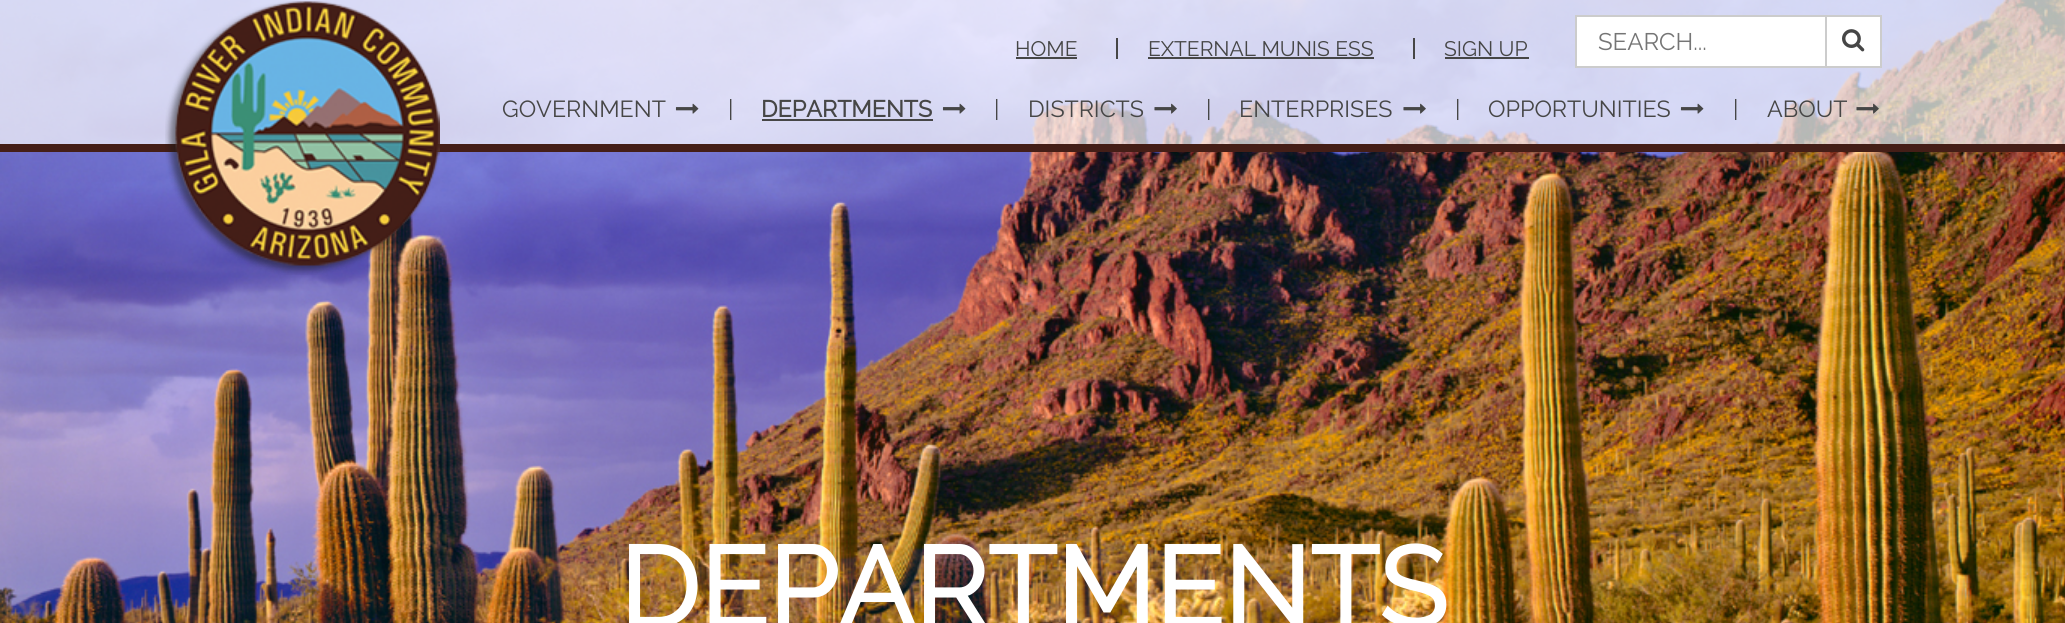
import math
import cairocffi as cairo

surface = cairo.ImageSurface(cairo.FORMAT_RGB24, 2065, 623)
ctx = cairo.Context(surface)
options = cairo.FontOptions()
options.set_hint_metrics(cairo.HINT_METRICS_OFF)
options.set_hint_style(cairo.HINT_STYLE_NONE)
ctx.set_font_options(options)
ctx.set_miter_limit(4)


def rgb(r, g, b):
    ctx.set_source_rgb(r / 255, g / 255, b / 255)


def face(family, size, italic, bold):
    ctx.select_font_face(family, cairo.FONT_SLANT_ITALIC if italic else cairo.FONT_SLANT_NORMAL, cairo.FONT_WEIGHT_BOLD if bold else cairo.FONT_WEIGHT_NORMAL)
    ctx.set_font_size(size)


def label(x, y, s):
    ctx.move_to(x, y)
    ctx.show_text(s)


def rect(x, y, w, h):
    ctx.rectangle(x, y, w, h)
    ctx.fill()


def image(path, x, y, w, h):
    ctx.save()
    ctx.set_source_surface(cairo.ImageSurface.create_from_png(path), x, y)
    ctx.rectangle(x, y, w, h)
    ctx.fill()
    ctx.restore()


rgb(255, 255, 255)
ctx.paint()
image('image8.png', 0, 0, 2065, 623)
ctx.set_source_rgba(1, 1, 1, 0.7)
rect(0, 0, 2065, 144)
rgb(68, 30, 23)
rect(0, 144, 2065, 8)
image('image0.png', 165, 1, 275, 274)
rgb(255, 255, 255)
ctx.rectangle(1576, 16, 250, 51)
ctx.fill_preserve()
rgb(204, 204, 204)
ctx.stroke()
face('Raleway Thin', 24, 0, 0)
rgb(117, 117, 117)
label(1598, 50, 'SEARCH...')
rgb(255, 255, 255)
rect(1827, 17, 53, 49)
rgb(204, 204, 204)
rect(1827, 15, 54, 2)
rect(1880, 15, 2, 53)
rect(1827, 66, 54, 2)
image('image1.png', 1842, 29, 23, 23)
face('Raleway Thin', 21, 0, 0)
rgb(70, 70, 70)
label(1015, 56, 'HOME')
rect(1016, 57, 61, 2)
rect(1116, 38, 2, 21)
label(1148, 56, 'EXTERNAL MUNIS ESS')
rect(1148, 57, 226, 2)
rect(1413, 38, 2, 21)
label(1444, 56, 'SIGN UP')
rect(1445, 57, 84, 2)
face('Raleway Thin', 23.25, 0, 0)
label(502, 117, 'GOVERNMENT')
image('image2.png', 675, 103, 24, 11)
label(728, 117, '|')
face('Raleway', 23.25, 0, 1)
label(761, 117, 'DEPARTMENTS')
rect(762, 119, 171, 2)
image('image3.png', 942, 103, 24, 11)
face('Raleway Thin', 23.25, 0, 0)
label(994, 117, '|')
label(1028, 117, 'DISTRICTS')
image('image4.png', 1154, 103, 23, 11)
label(1206, 117, '|')
label(1239, 117, 'ENTERPRISES')
image('image5.png', 1403, 103, 23, 11)
label(1455, 117, '|')
label(1488, 117, 'OPPORTUNITIES')
image('image6.png', 1680, 103, 24, 11)
label(1733, 117, '|')
label(1767, 117, 'ABOUT')
image('image7.png', 1856, 103, 23, 11)
face('Raleway', 112.5, 0, 1)
rgb(255, 255, 255)
label(619, 627, 'DEPARTMENTS')
surface.write_to_png('render.png')
